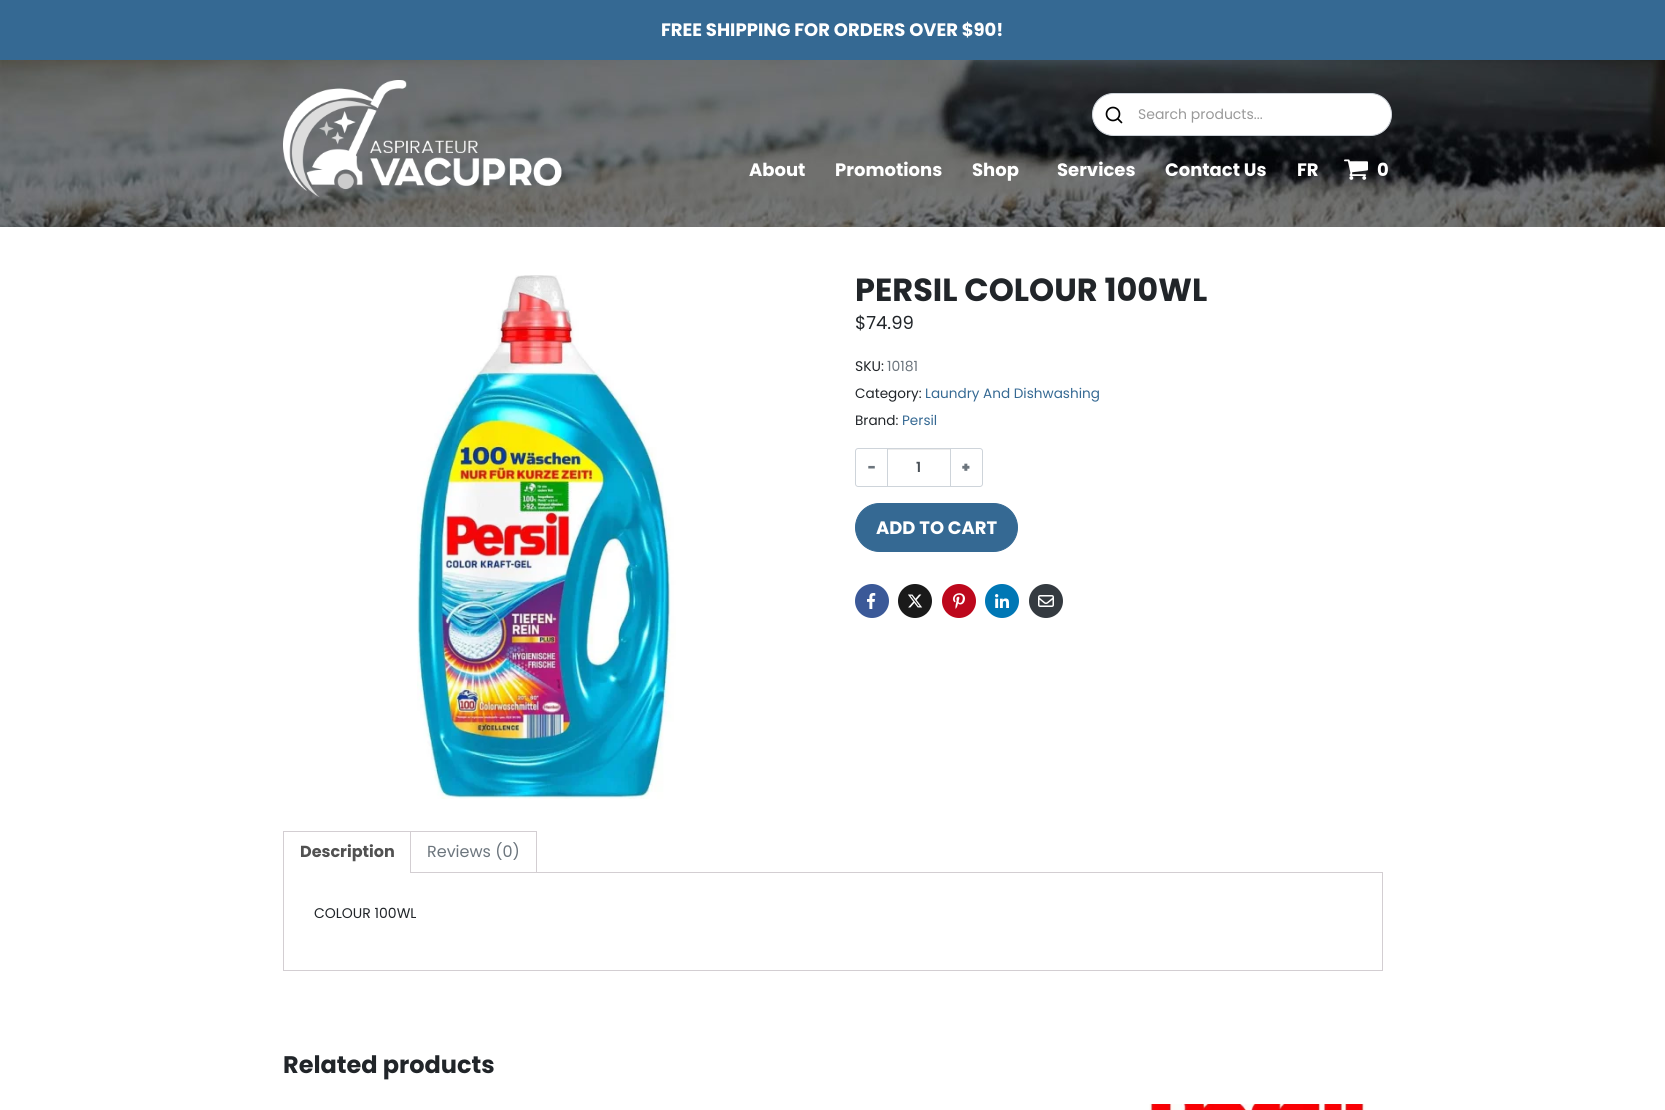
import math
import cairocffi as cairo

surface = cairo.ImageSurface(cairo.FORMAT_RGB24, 1665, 1110)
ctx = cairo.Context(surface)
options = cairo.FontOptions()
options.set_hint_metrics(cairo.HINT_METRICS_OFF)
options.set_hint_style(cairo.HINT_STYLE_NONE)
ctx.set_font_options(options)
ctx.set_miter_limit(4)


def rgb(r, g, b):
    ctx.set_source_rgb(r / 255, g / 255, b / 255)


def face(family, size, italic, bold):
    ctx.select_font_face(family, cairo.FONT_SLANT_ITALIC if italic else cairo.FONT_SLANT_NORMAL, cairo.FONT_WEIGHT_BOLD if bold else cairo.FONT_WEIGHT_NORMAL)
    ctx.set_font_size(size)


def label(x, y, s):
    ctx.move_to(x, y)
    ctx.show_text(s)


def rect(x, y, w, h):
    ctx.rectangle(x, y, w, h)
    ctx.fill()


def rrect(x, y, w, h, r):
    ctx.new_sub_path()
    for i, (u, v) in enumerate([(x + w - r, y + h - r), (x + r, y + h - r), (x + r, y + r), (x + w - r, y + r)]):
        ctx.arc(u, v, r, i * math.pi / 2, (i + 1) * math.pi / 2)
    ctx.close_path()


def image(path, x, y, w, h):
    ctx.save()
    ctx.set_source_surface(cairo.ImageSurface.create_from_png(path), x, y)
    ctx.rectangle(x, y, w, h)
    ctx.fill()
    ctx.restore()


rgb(255, 255, 255)
ctx.paint()
rgb(53, 105, 147)
rect(0, 0, 1665, 60)
face('Poppins', 18, 0, 1)
rgb(255, 255, 255)
label(661, 36, 'FREE SHIPPING FOR ORDERS OVER $90!')
image('image0.png', 0, 60, 1665, 167)
image('image1.png', 283, 80, 279, 117)
rrect(1092.5, 93.5, 299, 42, 21)
ctx.fill_preserve()
rgb(206, 212, 218)
ctx.set_line_width(1)
ctx.stroke()
ctx.arc(1113, 114, 6.5, 0, 2 * math.pi)
rgb(0, 0, 0)
ctx.set_line_width(1.7)
ctx.stroke()
ctx.new_path()
ctx.move_to(1121.5, 122.5)
ctx.line_to(1118, 119)
ctx.set_line_cap(cairo.LINE_CAP_ROUND)
ctx.set_line_join(cairo.LINE_JOIN_ROUND)
ctx.stroke()
face('Poppins', 14, 0, 0)
rgb(153, 153, 153)
label(1138, 119, 'Search products...')
face('Poppins', 18, 0, 1)
rgb(255, 255, 255)
label(749, 176, 'About')
label(835, 176, 'Promotions')
label(972, 176, 'Shop')
label(1057, 176, 'Services')
label(1165, 176, 'Contact Us')
label(1297, 176, 'FR')
image('image2.png', 1344, 159, 24, 21)
label(1377, 176, '0')
image('image3.png', 417, 275, 259, 524)
face('Poppins', 32, 0, 1)
rgb(33, 37, 41)
label(855, 301, 'PERSIL COLOUR 100WL')
face('Poppins', 18, 0, 0)
label(855, 329, '$74.99')
face('Poppins', 14, 0, 0)
label(855, 371, 'SKU:')
rgb(108, 117, 125)
label(887, 371, '10181')
face('Poppins', 13.6, 0, 0)
rgb(33, 37, 41)
label(855, 398, 'Category:')
rgb(53, 105, 147)
label(925, 398, 'Laundry And Dishwashing')
rgb(33, 37, 41)
label(855, 425, 'Brand:')
rgb(53, 105, 147)
label(902, 425, 'Persil')
rgb(236, 236, 236)
rect(888, 449, 62, 1)
ctx.rectangle(887.5, 448.5, 63, 38)
rgb(206, 212, 218)
ctx.set_line_width(1)
ctx.set_line_cap(cairo.LINE_CAP_BUTT)
ctx.set_line_join(cairo.LINE_JOIN_MITER)
ctx.stroke()
ctx.set_fill_rule(cairo.FILL_RULE_EVEN_ODD)
ctx.new_path()
ctx.move_to(858, 448)
ctx.line_to(888, 448)
ctx.line_to(888, 487)
ctx.line_to(858, 487)
ctx.curve_to(856.5, 487, 855, 485.5, 855, 484)
ctx.line_to(855, 451)
ctx.curve_to(855, 449.5, 856.5, 448, 858, 448)
ctx.close_path()
ctx.move_to(858, 449)
ctx.line_to(888, 449)
ctx.line_to(888, 486)
ctx.line_to(858, 486)
ctx.curve_to(857, 486, 856, 485, 856, 484)
ctx.line_to(856, 451)
ctx.curve_to(856, 450, 857, 449, 858, 449)
ctx.close_path()
ctx.fill()
face('Poppins Black', 14, 0, 0)
rgb(108, 117, 125)
label(868, 472, '-')
face('Poppins SemiBold', 14, 0, 0)
rgb(73, 80, 87)
label(916, 472, '1')
rgb(206, 212, 218)
ctx.new_path()
ctx.move_to(950, 448)
ctx.line_to(980, 448)
ctx.curve_to(981.5, 448, 983, 449.5, 983, 451)
ctx.line_to(983, 484)
ctx.curve_to(983, 485.5, 981.5, 487, 980, 487)
ctx.line_to(950, 487)
ctx.close_path()
ctx.move_to(950, 449)
ctx.line_to(980, 449)
ctx.curve_to(981, 449, 982, 450, 982, 451)
ctx.line_to(982, 484)
ctx.curve_to(982, 485, 981, 486, 980, 486)
ctx.line_to(950, 486)
ctx.close_path()
ctx.fill()
face('Poppins Black', 14, 0, 0)
rgb(108, 117, 125)
label(962, 472, '+')
rgb(53, 105, 147)
rrect(855.5, 503.5, 162, 48, 24)
ctx.fill_preserve()
ctx.stroke()
face('Poppins', 18, 0, 1)
rgb(255, 255, 255)
label(876, 534, 'ADD TO CART')
rgb(59, 89, 152)
ctx.new_path()
ctx.arc(872, 601, 17, 0, 2 * math.pi)
ctx.fill()
image('image4.png', 867, 593, 9, 16)
rgb(26, 26, 26)
ctx.arc(915, 601, 17, 0, 2 * math.pi)
ctx.fill()
image('image5.png', 908, 594, 15, 14)
rgb(189, 8, 28)
ctx.arc(959, 601, 17, 0, 2 * math.pi)
ctx.fill()
image('image6.png', 953, 593, 12, 16)
rgb(0, 119, 181)
ctx.arc(1002, 601, 17, 0, 2 * math.pi)
ctx.fill()
image('image7.png', 995, 594, 14, 14)
rgb(52, 58, 64)
ctx.arc(1046, 601, 17, 0, 2 * math.pi)
ctx.fill()
image('image8.png', 1038, 595, 16, 12)
rgb(211, 206, 210)
rect(283, 831, 254, 1)
rect(410, 831, 1, 42)
rect(283, 831, 1, 42)
face('Poppins', 16, 0, 1)
rgb(81, 81, 81)
label(300, 857, 'Description')
rgb(211, 206, 210)
rect(536, 831, 1, 42)
face('Poppins', 16, 0, 0)
rgb(108, 117, 125)
label(427, 857, 'Reviews (0)')
rgb(211, 206, 210)
rect(411, 872, 972, 1)
rect(1382, 873, 1, 98)
rect(283, 970, 1100, 1)
rect(283, 873, 1, 98)
face('Poppins', 14, 0, 0)
rgb(33, 37, 41)
label(314, 918, 'COLOUR 100WL')
face('Poppins', 24, 0, 1)
label(283, 1073, 'Related products')
image('image9.png', 1149, 1104, 217, 6)
surface.write_to_png('render.png')
